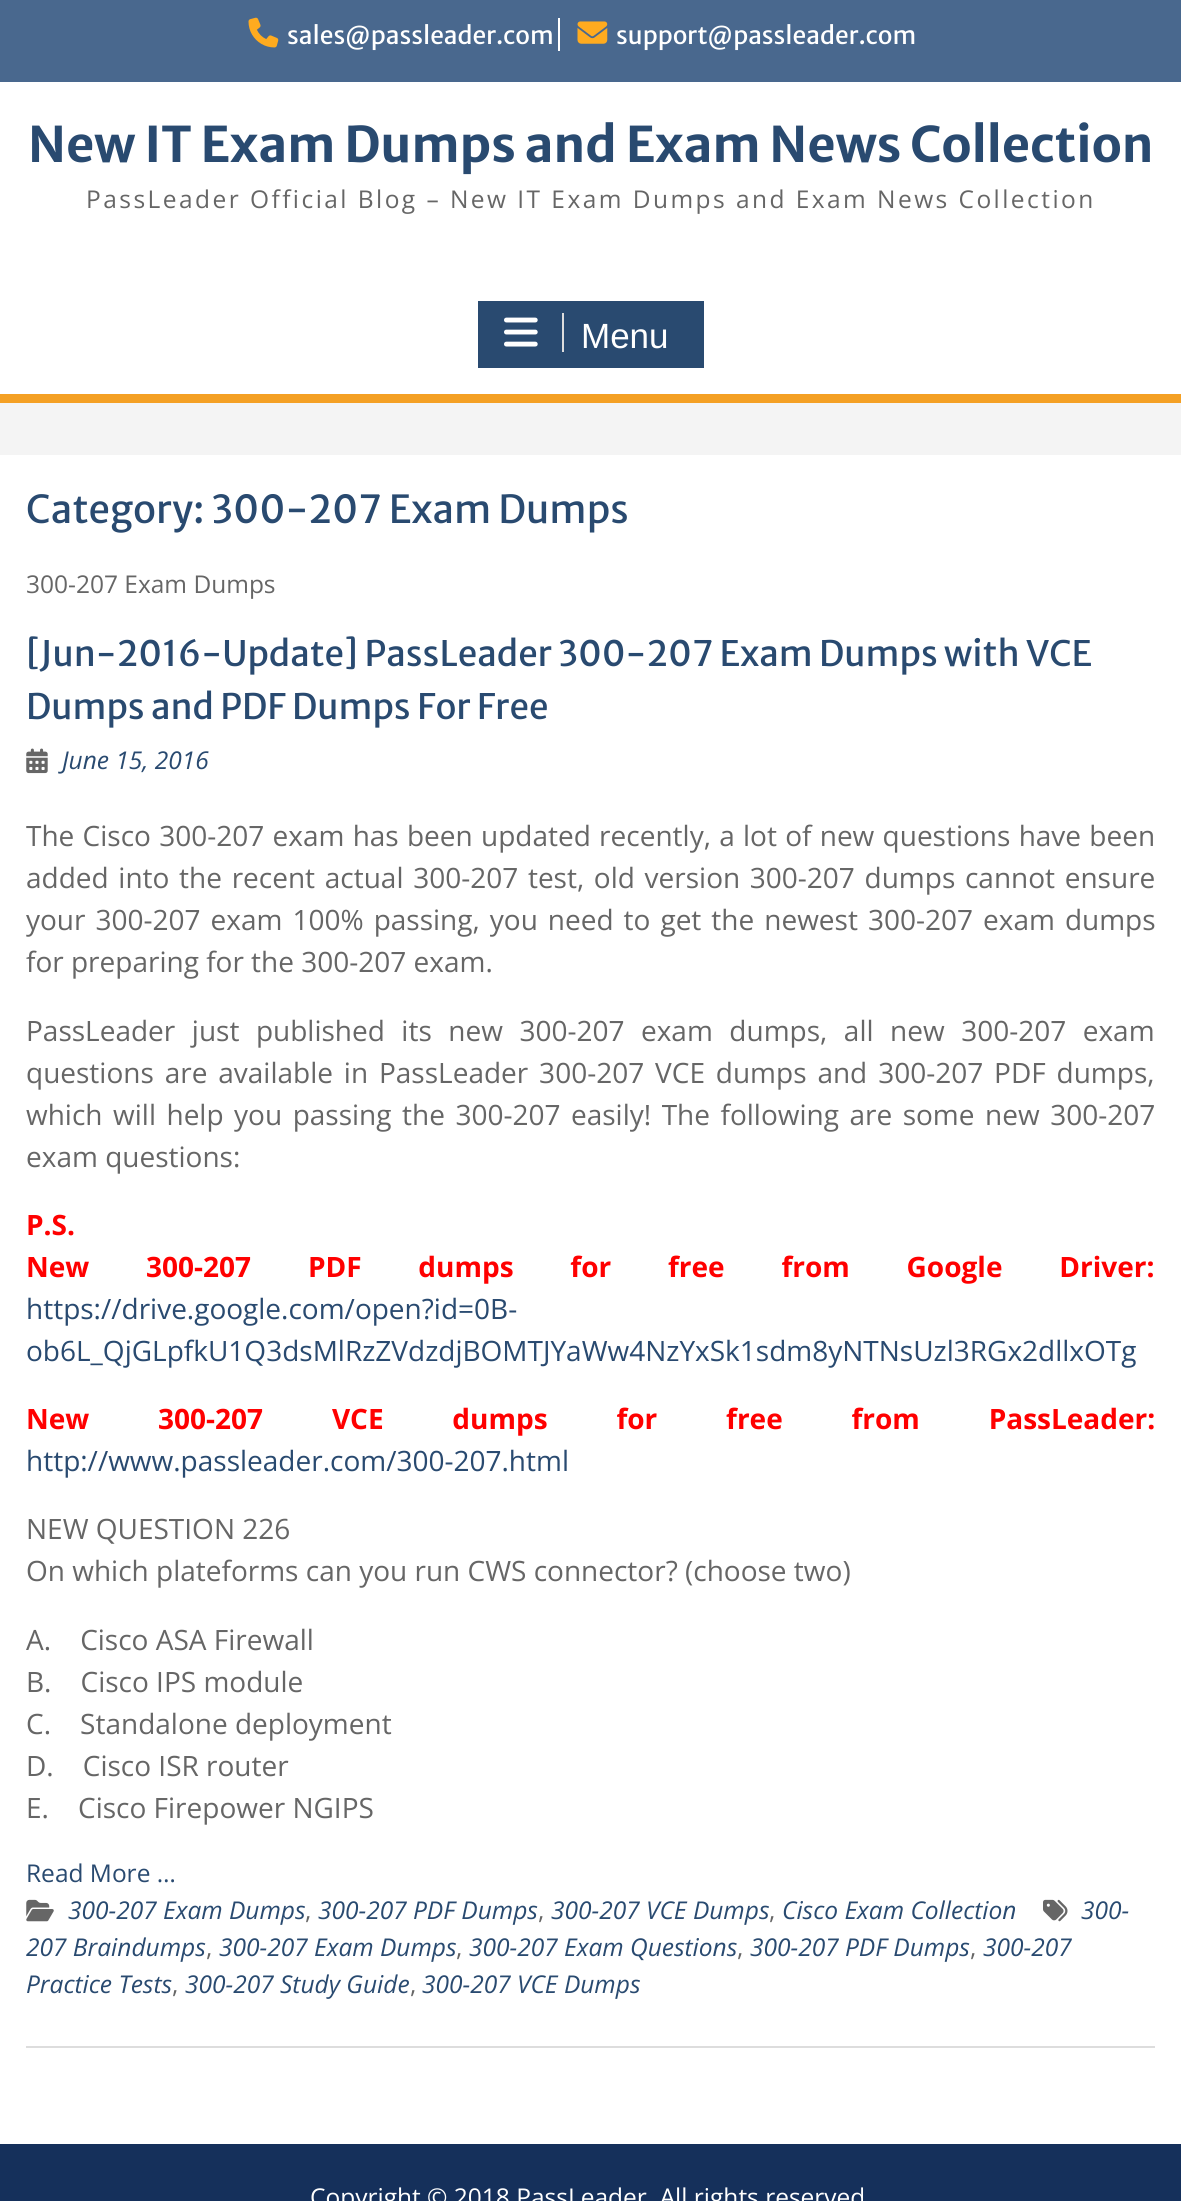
import math
import cairocffi as cairo

surface = cairo.ImageSurface(cairo.FORMAT_RGB24, 1181, 2201)
ctx = cairo.Context(surface)
options = cairo.FontOptions()
options.set_hint_metrics(cairo.HINT_METRICS_OFF)
options.set_hint_style(cairo.HINT_STYLE_NONE)
ctx.set_font_options(options)
ctx.set_miter_limit(4)


def rgb(r, g, b):
    ctx.set_source_rgb(r / 255, g / 255, b / 255)


def face(family, size, italic, bold):
    ctx.select_font_face(family, cairo.FONT_SLANT_ITALIC if italic else cairo.FONT_SLANT_NORMAL, cairo.FONT_WEIGHT_BOLD if bold else cairo.FONT_WEIGHT_NORMAL)
    ctx.set_font_size(size)


def label(x, y, s):
    ctx.move_to(x, y)
    ctx.show_text(s)


def tracked(x, y, s, letter, word):
    ctx.move_to(x, y)
    for ch in s:
        ctx.show_text(ch)
        ctx.rel_move_to(letter + word * (ch == ' '), 0)


def rect(x, y, w, h):
    ctx.rectangle(x, y, w, h)
    ctx.fill()


def image(path, x, y, w, h):
    ctx.save()
    ctx.set_source_surface(cairo.ImageSurface.create_from_png(path), x, y)
    ctx.rectangle(x, y, w, h)
    ctx.fill()
    ctx.restore()


rgb(255, 255, 255)
ctx.paint()
rgb(73, 104, 142)
rect(0, 0, 1181, 82)
image('image0.png', 248, 17, 31, 31)
face('Merriweather Sans', 24.5, 0, 0)
rgb(255, 255, 255)
label(287, 44, 'sales@passleader.com')
rect(558, 18, 2, 33)
image('image1.png', 577, 21, 31, 23)
label(616, 44, 'support@passleader.com')
face('Merriweather Sans', 49, 0, 1)
rgb(41, 74, 112)
label(28, 162, 'New IT Exam Dumps and Exam News Collection')
face('Open Sans', 24.5, 0, 0)
rgb(102, 102, 102)
tracked(86, 208, 'PassLeader Official Blog – New IT Exam Dumps and Exam News Collection', 2.45, 0)
rgb(244, 160, 36)
rect(0, 394, 1181, 9)
rgb(41, 74, 112)
rect(478, 301, 226, 67)
rgb(221, 221, 221)
rect(562, 313, 2, 39)
image('image2.png', 504, 317, 34, 30)
face('Liberation Sans', 35, 0, 0)
rgb(255, 255, 255)
label(581, 348, 'Menu')
rgb(244, 244, 244)
rect(0, 403, 1181, 52)
face('Merriweather Sans', 38.5, 0, 0)
rgb(41, 74, 112)
label(26, 523, 'Category: 300-207 Exam Dumps')
face('Open Sans', 24.5, 0, 0)
rgb(102, 102, 102)
label(26, 593, '300-207 Exam Dumps')
rgb(221, 221, 221)
rect(26, 2046, 1129, 2)
face('Merriweather Sans', 35, 0, 0)
rgb(41, 74, 112)
label(26, 666, '[Jun-2016-Update] PassLeader 300-207 Exam Dumps with VCE')
label(26, 719, 'Dumps and PDF Dumps For Free')
image('image3.png', 26, 748, 22, 26)
face('Open Sans', 24.5, 1, 0)
label(62, 769, 'June 15, 2016')
face('Open Sans', 28, 0, 0)
rgb(102, 102, 102)
tracked(26, 846, 'The Cisco 300-207 exam has been updated recently, a lot of new questions have been', 0, 1)
tracked(26, 888, 'added into the recent actual 300-207 test, old version 300-207 dumps cannot ensure', 0, 2.4)
tracked(26, 930, 'your 300-207 exam 100% passing, you need to get the newest 300-207 exam dumps', 0, 2.75)
label(26, 972, 'for preparing for the 300-207 exam.')
tracked(26, 1041, 'PassLeader just published its new 300-207 exam dumps, all new 300-207 exam', 0, 9.25)
tracked(26, 1083, 'questions are available in PassLeader 300-207 VCE dumps and 300-207 PDF dumps,', 0, 3.6)
tracked(26, 1125, 'which will help you passing the 300-207 easily! The following are some new 300-207', 0, 3.25)
label(26, 1167, 'exam questions:')
face('Open Sans', 28, 0, 1)
rgb(255, 0, 0)
label(26, 1235, 'P.S.')
tracked(26, 1277, 'New 300-207 PDF dumps for free from Google Driver:', 0, 49.5)
face('Open Sans', 28, 0, 0)
rgb(41, 74, 112)
label(26, 1319, 'https://drive.google.com/open?id=0B-')
label(26, 1361, 'ob6L_QjGLpfkU1Q3dsMlRzZVdzdjBOMTJYaWw4NzYxSk1sdm8yNTNsUzl3RGx2dllxOTg')
face('Open Sans', 28, 0, 1)
rgb(255, 0, 0)
tracked(26, 1429, 'New 300-207 VCE dumps for free from PassLeader:', 0, 61.5)
face('Open Sans', 28, 0, 0)
rgb(41, 74, 112)
label(26, 1471, 'http://www.passleader.com/300-207.html')
rgb(102, 102, 102)
label(26, 1539, 'NEW QUESTION 226')
label(26, 1581, 'On which plateforms can you run CWS connector? (choose two)')
label(26, 1650, 'A.    Cisco ASA Firewall')
label(26, 1692, 'B.    Cisco IPS module')
label(26, 1734, 'C.    Standalone deployment')
label(26, 1776, 'D.    Cisco ISR router')
label(26, 1818, 'E.    Cisco Firepower NGIPS')
face('Open Sans', 24.5, 0, 0)
rgb(41, 74, 112)
label(26, 1882, 'Read More …')
image('image4.png', 26, 1899, 28, 23)
face('Open Sans', 24.5, 1, 0)
label(68, 1919, '300-207 Exam Dumps')
face('Open Sans', 24.5, 0, 0)
rgb(102, 102, 102)
label(305, 1919, ',')
face('Open Sans', 24.5, 1, 0)
rgb(41, 74, 112)
label(318, 1919, '300-207 PDF Dumps')
face('Open Sans', 24.5, 0, 0)
rgb(102, 102, 102)
label(538, 1919, ',')
face('Open Sans', 24.5, 1, 0)
rgb(41, 74, 112)
label(551, 1919, '300-207 VCE Dumps')
face('Open Sans', 24.5, 0, 0)
rgb(102, 102, 102)
label(769, 1919, ',')
face('Open Sans', 24.5, 1, 0)
rgb(41, 74, 112)
label(782, 1919, 'Cisco Exam Collection')
image('image5.png', 1043, 1899, 25, 23)
label(1081, 1919, '300-')
label(26, 1956, '207 Braindumps')
face('Open Sans', 24.5, 0, 0)
rgb(102, 102, 102)
label(206, 1956, ',')
face('Open Sans', 24.5, 1, 0)
rgb(41, 74, 112)
label(219, 1956, '300-207 Exam Dumps')
face('Open Sans', 24.5, 0, 0)
rgb(102, 102, 102)
label(456, 1956, ',')
face('Open Sans', 24.5, 1, 0)
rgb(41, 74, 112)
label(469, 1956, '300-207 Exam Questions')
face('Open Sans', 24.5, 0, 0)
rgb(102, 102, 102)
label(737, 1956, ',')
face('Open Sans', 24.5, 1, 0)
rgb(41, 74, 112)
label(750, 1956, '300-207 PDF Dumps')
face('Open Sans', 24.5, 0, 0)
rgb(102, 102, 102)
label(970, 1956, ',')
face('Open Sans', 24.5, 1, 0)
rgb(41, 74, 112)
label(983, 1956, '300-207')
label(26, 1993, 'Practice Tests')
face('Open Sans', 24.5, 0, 0)
rgb(102, 102, 102)
label(172, 1993, ',')
face('Open Sans', 24.5, 1, 0)
rgb(41, 74, 112)
label(185, 1993, '300-207 Study Guide')
face('Open Sans', 24.5, 0, 0)
rgb(102, 102, 102)
label(410, 1993, ',')
face('Open Sans', 24.5, 1, 0)
rgb(41, 74, 112)
label(422, 1993, '300-207 VCE Dumps')
rgb(21, 48, 91)
rect(0, 2144, 1181, 57)
face('Open Sans', 24.5, 0, 0)
rgb(255, 255, 255)
label(310, 2206, 'Copyright © 2018 PassLeader. All rights reserved')
surface.write_to_png('render.png')
